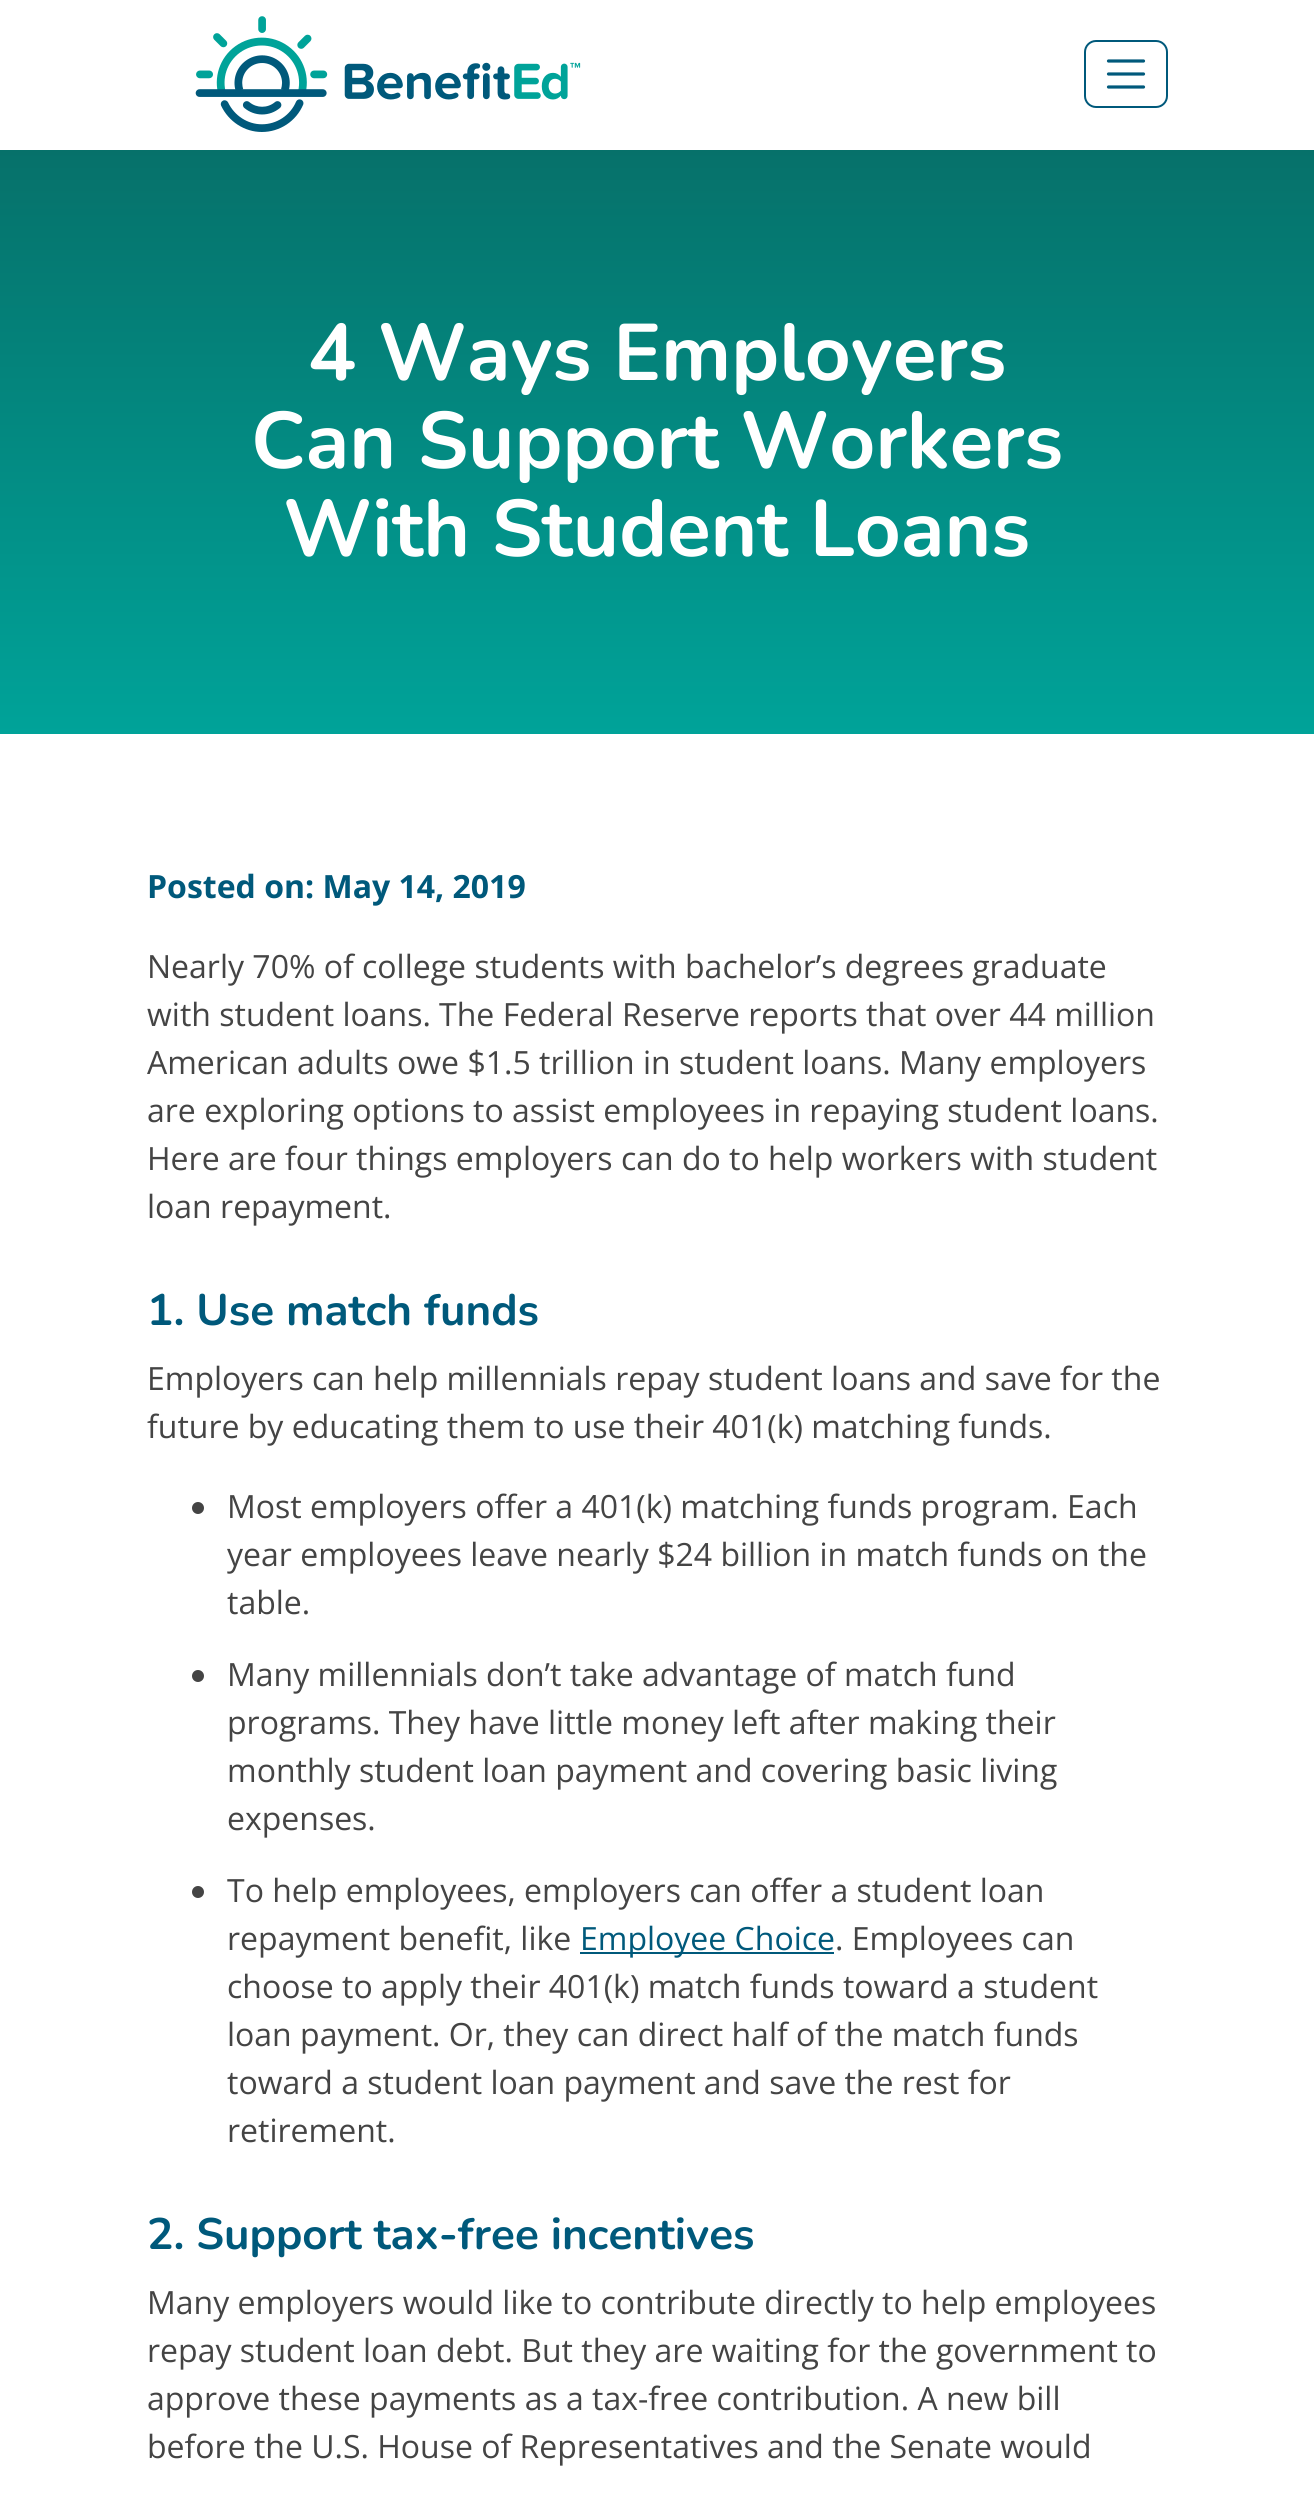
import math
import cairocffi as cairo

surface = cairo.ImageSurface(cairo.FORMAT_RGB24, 1314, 2495)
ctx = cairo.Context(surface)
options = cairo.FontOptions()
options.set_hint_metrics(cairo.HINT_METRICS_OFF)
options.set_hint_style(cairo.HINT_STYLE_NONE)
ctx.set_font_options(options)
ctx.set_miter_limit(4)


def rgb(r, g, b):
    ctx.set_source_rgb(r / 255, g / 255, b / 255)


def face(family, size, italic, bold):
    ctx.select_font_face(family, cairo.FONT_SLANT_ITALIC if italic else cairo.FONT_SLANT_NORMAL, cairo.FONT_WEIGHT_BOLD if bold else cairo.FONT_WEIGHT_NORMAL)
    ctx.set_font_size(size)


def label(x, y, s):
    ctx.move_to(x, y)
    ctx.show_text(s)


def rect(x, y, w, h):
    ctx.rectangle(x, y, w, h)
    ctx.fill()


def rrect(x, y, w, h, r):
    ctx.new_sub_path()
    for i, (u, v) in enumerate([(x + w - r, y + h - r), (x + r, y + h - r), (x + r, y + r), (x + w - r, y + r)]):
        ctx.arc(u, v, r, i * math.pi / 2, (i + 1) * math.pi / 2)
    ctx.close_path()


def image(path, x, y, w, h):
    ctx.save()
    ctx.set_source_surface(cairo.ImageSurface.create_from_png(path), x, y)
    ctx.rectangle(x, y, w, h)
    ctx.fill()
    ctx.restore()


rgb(255, 255, 255)
ctx.paint()
image('image0.png', 195, 16, 386, 116)
rrect(1085, 41, 82, 66, 11)
rgb(0, 89, 123)
ctx.stroke()
ctx.new_path()
ctx.move_to(1108.5, 61)
ctx.line_to(1143.5, 61)
ctx.move_to(1108.5, 74)
ctx.line_to(1143.5, 74)
ctx.move_to(1108.5, 87)
ctx.line_to(1143.5, 87)
ctx.set_line_width(3.2)
ctx.set_line_cap(cairo.LINE_CAP_ROUND)
ctx.stroke()
gradient = cairo.LinearGradient(657, 150, 657, 734)
gradient.add_color_stop_rgba(0, 0.024, 0.443, 0.416, 1)
gradient.add_color_stop_rgba(1, 0, 0.639, 0.6, 1)
ctx.set_source(gradient)
rect(0, 150, 1314, 584)
face('Nunito', 80, 0, 1)
rgb(255, 255, 255)
label(308, 380, '4 Ways Employers')
label(251, 468, 'Can Support Workers')
label(283, 556, 'With Student Loans')
face('Open Sans', 32, 0, 1)
rgb(0, 89, 123)
label(147, 898, 'Posted on: May 14, 2019')
face('Open Sans', 32, 0, 0)
rgb(68, 68, 68)
label(147, 978, 'Nearly 70% of college students with bachelor’s degrees graduate')
label(147, 1026, 'with student loans. The Federal Reserve reports that over 44 million')
label(147, 1074, 'American adults owe $1.5 trillion in student loans. Many employers')
label(147, 1122, 'are exploring options to assist employees in repaying student loans.')
label(147, 1170, 'Here are four things employers can do to help workers with student')
label(147, 1218, 'loan repayment.')
face('Nunito', 44, 0, 1)
rgb(0, 89, 123)
label(147, 1325, '1. Use match funds')
face('Open Sans', 32, 0, 0)
rgb(68, 68, 68)
label(147, 1390, 'Employers can help millennials repay student loans and save for the')
label(147, 1438, 'future by educating them to use their 401(k) matching funds.')
ctx.new_path()
ctx.arc(198, 1508, 6, 0, 2 * math.pi)
ctx.fill()
label(227, 1518, 'Most employers offer a 401(k) matching funds program. Each')
label(227, 1566, 'year employees leave nearly $24 billion in match funds on the')
label(227, 1614, 'table.')
ctx.new_path()
ctx.arc(198, 1676, 6, 0, 2 * math.pi)
ctx.fill()
label(227, 1686, 'Many millennials don’t take advantage of match fund')
label(227, 1734, 'programs. They have little money left after making their')
label(227, 1782, 'monthly student loan payment and covering basic living')
label(227, 1830, 'expenses.')
ctx.new_path()
ctx.arc(198, 1892, 6, 0, 2 * math.pi)
ctx.fill()
label(227, 1902, 'To help employees, employers can offer a student loan')
label(227, 1950, 'repayment benefit, like')
rgb(0, 89, 123)
rect(580, 1952, 254, 2)
label(580, 1950, 'Employee Choice')
rgb(68, 68, 68)
label(835, 1950, '. Employees can')
label(227, 1998, 'choose to apply their 401(k) match funds toward a student')
label(227, 2046, 'loan payment. Or, they can direct half of the match funds')
label(227, 2094, 'toward a student loan payment and save the rest for')
label(227, 2142, 'retirement.')
face('Nunito', 44, 0, 1)
rgb(0, 89, 123)
label(147, 2249, '2. Support tax-free incentives')
face('Open Sans', 32, 0, 0)
rgb(68, 68, 68)
label(147, 2314, 'Many employers would like to contribute directly to help employees')
label(147, 2362, 'repay student loan debt. But they are waiting for the government to')
label(147, 2410, 'approve these payments as a tax-free contribution. A new bill')
label(147, 2458, 'before the U.S. House of Representatives and the Senate would')
surface.write_to_png('render.png')
